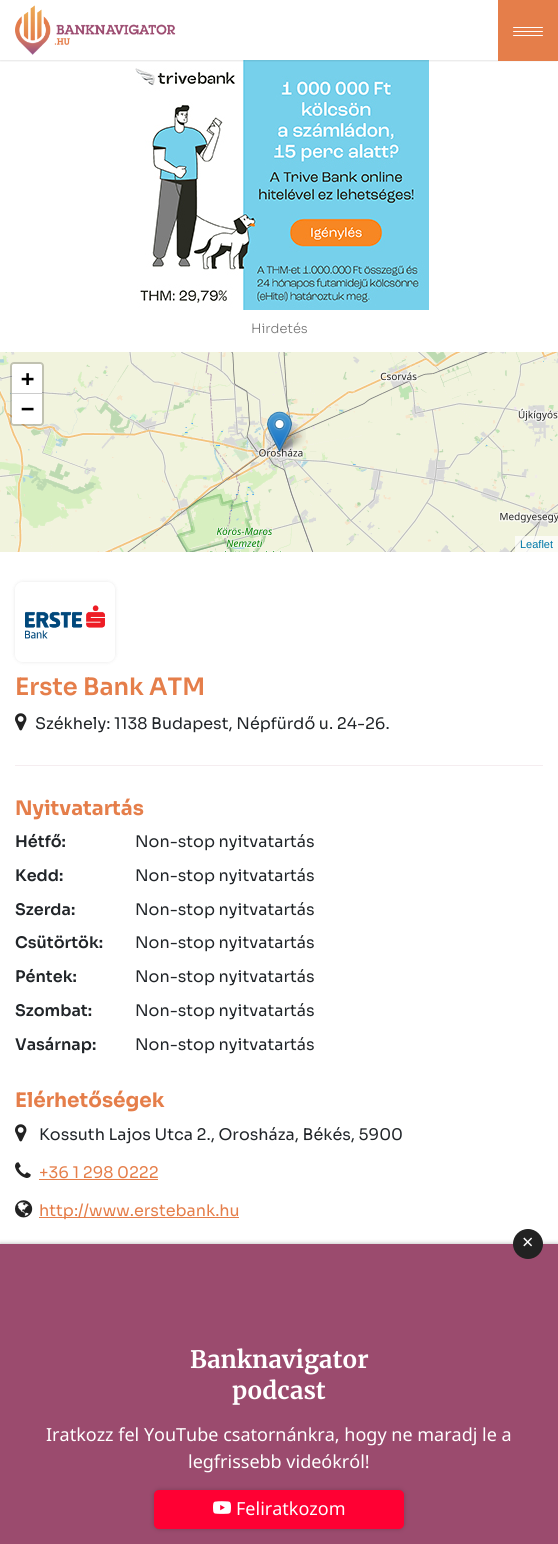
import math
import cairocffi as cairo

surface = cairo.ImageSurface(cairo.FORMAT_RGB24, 558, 1544)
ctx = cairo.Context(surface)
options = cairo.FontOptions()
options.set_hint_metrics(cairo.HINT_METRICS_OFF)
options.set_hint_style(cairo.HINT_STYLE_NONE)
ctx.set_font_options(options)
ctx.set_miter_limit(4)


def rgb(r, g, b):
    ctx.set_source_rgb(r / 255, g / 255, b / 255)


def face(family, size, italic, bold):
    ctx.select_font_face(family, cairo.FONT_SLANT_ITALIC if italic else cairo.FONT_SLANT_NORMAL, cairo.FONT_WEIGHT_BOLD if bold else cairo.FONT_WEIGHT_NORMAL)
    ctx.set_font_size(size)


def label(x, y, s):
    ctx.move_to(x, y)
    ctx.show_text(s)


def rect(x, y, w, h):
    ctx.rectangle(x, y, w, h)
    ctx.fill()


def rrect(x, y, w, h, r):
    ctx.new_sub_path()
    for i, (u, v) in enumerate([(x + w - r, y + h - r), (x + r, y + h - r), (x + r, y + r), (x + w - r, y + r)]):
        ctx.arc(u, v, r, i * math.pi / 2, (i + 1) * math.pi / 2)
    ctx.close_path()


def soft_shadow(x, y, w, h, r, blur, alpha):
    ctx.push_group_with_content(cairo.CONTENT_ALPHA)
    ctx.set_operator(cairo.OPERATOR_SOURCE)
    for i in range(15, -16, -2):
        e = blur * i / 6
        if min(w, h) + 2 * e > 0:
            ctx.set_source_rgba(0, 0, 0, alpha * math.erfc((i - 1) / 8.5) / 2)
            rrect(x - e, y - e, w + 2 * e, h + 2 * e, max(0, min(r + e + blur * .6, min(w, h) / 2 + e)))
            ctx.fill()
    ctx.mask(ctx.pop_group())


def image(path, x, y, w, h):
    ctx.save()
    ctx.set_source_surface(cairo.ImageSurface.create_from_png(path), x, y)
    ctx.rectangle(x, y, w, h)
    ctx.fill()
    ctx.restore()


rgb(255, 255, 255)
ctx.paint()
image('image1.png', 135, 60, 294, 250)
ctx.save()
ctx.rectangle(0, 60, 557, 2)
ctx.clip()
rgb(0, 0, 0)
soft_shadow(0, 0, 558, 60, 0, 1.5, 0.2)
ctx.restore()
image('image0.png', 15, 5, 161, 50)
rgb(229, 126, 74)
rect(498, 0, 60, 61)
rgb(255, 255, 255)
rrect(513, 27, 30, 1, 0.5)
ctx.fill()
rrect(513, 31, 30, 1, 0.5)
ctx.fill()
rrect(513, 35, 30, 1, 0.5)
ctx.fill()
face('Sora Light', 13, 0, 0)
rgb(119, 119, 119)
label(251, 333, 'Hirdetés')
image('image2.png', 0, 352, 76, 100)
image('image3.png', 76, 352, 256, 100)
image('image4.png', 332, 352, 226, 100)
image('image5.png', 0, 452, 76, 100)
image('image6.png', 76, 452, 256, 100)
image('image7.png', 332, 452, 226, 100)
image('image9.png', 277, 424, 29, 28)
image('image8.png', 267, 411, 25, 41)
rrect(11, 363, 32, 62, 3)
ctx.set_source_rgba(0, 0, 0, 0.2)
ctx.stroke()
rgb(255, 255, 255)
ctx.new_path()
ctx.move_to(14, 364)
ctx.line_to(40, 364)
ctx.curve_to(41, 364, 42, 365, 42, 366)
ctx.line_to(42, 394)
ctx.line_to(12, 394)
ctx.line_to(12, 366)
ctx.curve_to(12, 365, 13, 364, 14, 364)
ctx.close_path()
ctx.fill()
rgb(204, 204, 204)
rect(12, 393, 30, 1)
face('DejaVu Sans Mono', 22, 0, 1)
rgb(0, 0, 0)
label(21, 386, '+')
rgb(255, 255, 255)
ctx.new_path()
ctx.move_to(12, 394)
ctx.line_to(42, 394)
ctx.line_to(42, 422)
ctx.curve_to(42, 423, 41, 424, 40, 424)
ctx.line_to(14, 424)
ctx.curve_to(13, 424, 12, 423, 12, 422)
ctx.close_path()
ctx.fill()
rgb(0, 0, 0)
label(21, 416, '−')
ctx.set_source_rgba(1, 1, 1, 0.7)
rect(515, 536, 43, 16)
face('Liberation Sans', 11, 0, 0)
rgb(0, 120, 168)
label(520, 548, 'Leaflet')
rgb(245, 237, 240)
rect(15, 765, 528, 1)
ctx.save()
ctx.set_fill_rule(cairo.FILL_RULE_EVEN_ODD)
ctx.new_path()
ctx.move_to(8, 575)
ctx.line_to(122, 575)
ctx.line_to(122, 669)
ctx.line_to(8, 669)
ctx.close_path()
ctx.move_to(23, 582)
ctx.line_to(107, 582)
ctx.curve_to(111.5, 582, 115, 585.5, 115, 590)
ctx.line_to(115, 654)
ctx.curve_to(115, 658.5, 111.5, 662, 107, 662)
ctx.line_to(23, 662)
ctx.curve_to(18.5, 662, 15, 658.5, 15, 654)
ctx.line_to(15, 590)
ctx.curve_to(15, 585.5, 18.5, 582, 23, 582)
ctx.close_path()
ctx.clip()
rgb(0, 0, 0)
soft_shadow(15, 582, 100, 80, 8, 2, 0.1)
ctx.restore()
image('image10.png', 25, 605, 80, 34)
face('Sora SemiBold', 24, 0, 0)
rgb(229, 126, 74)
label(15, 695, 'Erste Bank ATM')
image('image11.png', 15, 713, 12, 18)
face('Sora', 16, 0, 0)
rgb(33, 37, 41)
label(35, 729, 'Székhely: 1138 Budapest, Népfürdő u. 24-26.')
face('Sora', 20, 0, 1)
rgb(229, 126, 74)
label(15, 815, 'Nyitvatartás')
face('Sora SemiBold', 16, 0, 0)
rgb(33, 37, 41)
label(15, 847, 'Hétfő:')
face('Sora', 16, 0, 0)
label(135, 847, 'Non-stop nyitvatartás')
face('Sora SemiBold', 16, 0, 0)
label(15, 881, 'Kedd:')
face('Sora', 16, 0, 0)
label(135, 881, 'Non-stop nyitvatartás')
face('Sora SemiBold', 16, 0, 0)
label(15, 915, 'Szerda:')
face('Sora', 16, 0, 0)
label(135, 915, 'Non-stop nyitvatartás')
face('Sora SemiBold', 16, 0, 0)
label(15, 948, 'Csütörtök:')
face('Sora', 16, 0, 0)
label(135, 948, 'Non-stop nyitvatartás')
face('Sora SemiBold', 16, 0, 0)
label(15, 982, 'Péntek:')
face('Sora', 16, 0, 0)
label(135, 982, 'Non-stop nyitvatartás')
face('Sora SemiBold', 16, 0, 0)
label(15, 1016, 'Szombat:')
face('Sora', 16, 0, 0)
label(135, 1016, 'Non-stop nyitvatartás')
face('Sora SemiBold', 16, 0, 0)
label(15, 1050, 'Vasárnap:')
face('Sora', 16, 0, 0)
label(135, 1050, 'Non-stop nyitvatartás')
face('Sora', 20, 0, 1)
rgb(229, 126, 74)
label(15, 1107, 'Elérhetőségek')
image('image11.png', 15, 1124, 12, 18)
face('Sora', 16, 0, 0)
rgb(33, 37, 41)
label(39, 1140, 'Kossuth Lajos Utca 2., Orosháza, Békés, 5900')
image('image12.png', 15, 1162, 16, 16)
rgb(229, 126, 74)
label(39, 1178, '+36 1 298 0222')
rect(39, 1179, 119, 1)
image('image13.png', 15, 1200, 18, 18)
rect(39, 1217, 200, 1)
label(39, 1216, 'http://www.erstebank.hu')
rgb(0, 0, 0)
soft_shadow(0, 1244, 558, 300, 0, 2.5, 0.3)
rgb(155, 75, 110)
rect(0, 1244, 558, 300)
rgb(34, 34, 34)
ctx.arc(528, 1244, 15, 0, 2 * math.pi)
ctx.fill()
face('Noto Sans', 20, 0, 0)
rgb(255, 255, 255)
label(522, 1249, '×')
face('Merriweather', 24, 0, 1)
label(190, 1368, 'Banknavigator')
label(232, 1399, 'podcast')
face('Noto Sans', 18, 0, 0)
label(46, 1441, 'Iratkozz fel YouTube csatornánkra, hogy ne maradj le a')
label(188, 1468, 'legfrissebb videókról!')
rgb(0, 0, 0)
soft_shadow(154, 1490, 250, 39, 5, 2.5, 0.2)
rgb(255, 0, 51)
rrect(154, 1490, 250, 39, 5)
ctx.fill()
image('image14.png', 213, 1501, 18, 13)
rgb(255, 255, 255)
label(236, 1515, 'Feliratkozom')
surface.write_to_png('render.png')
